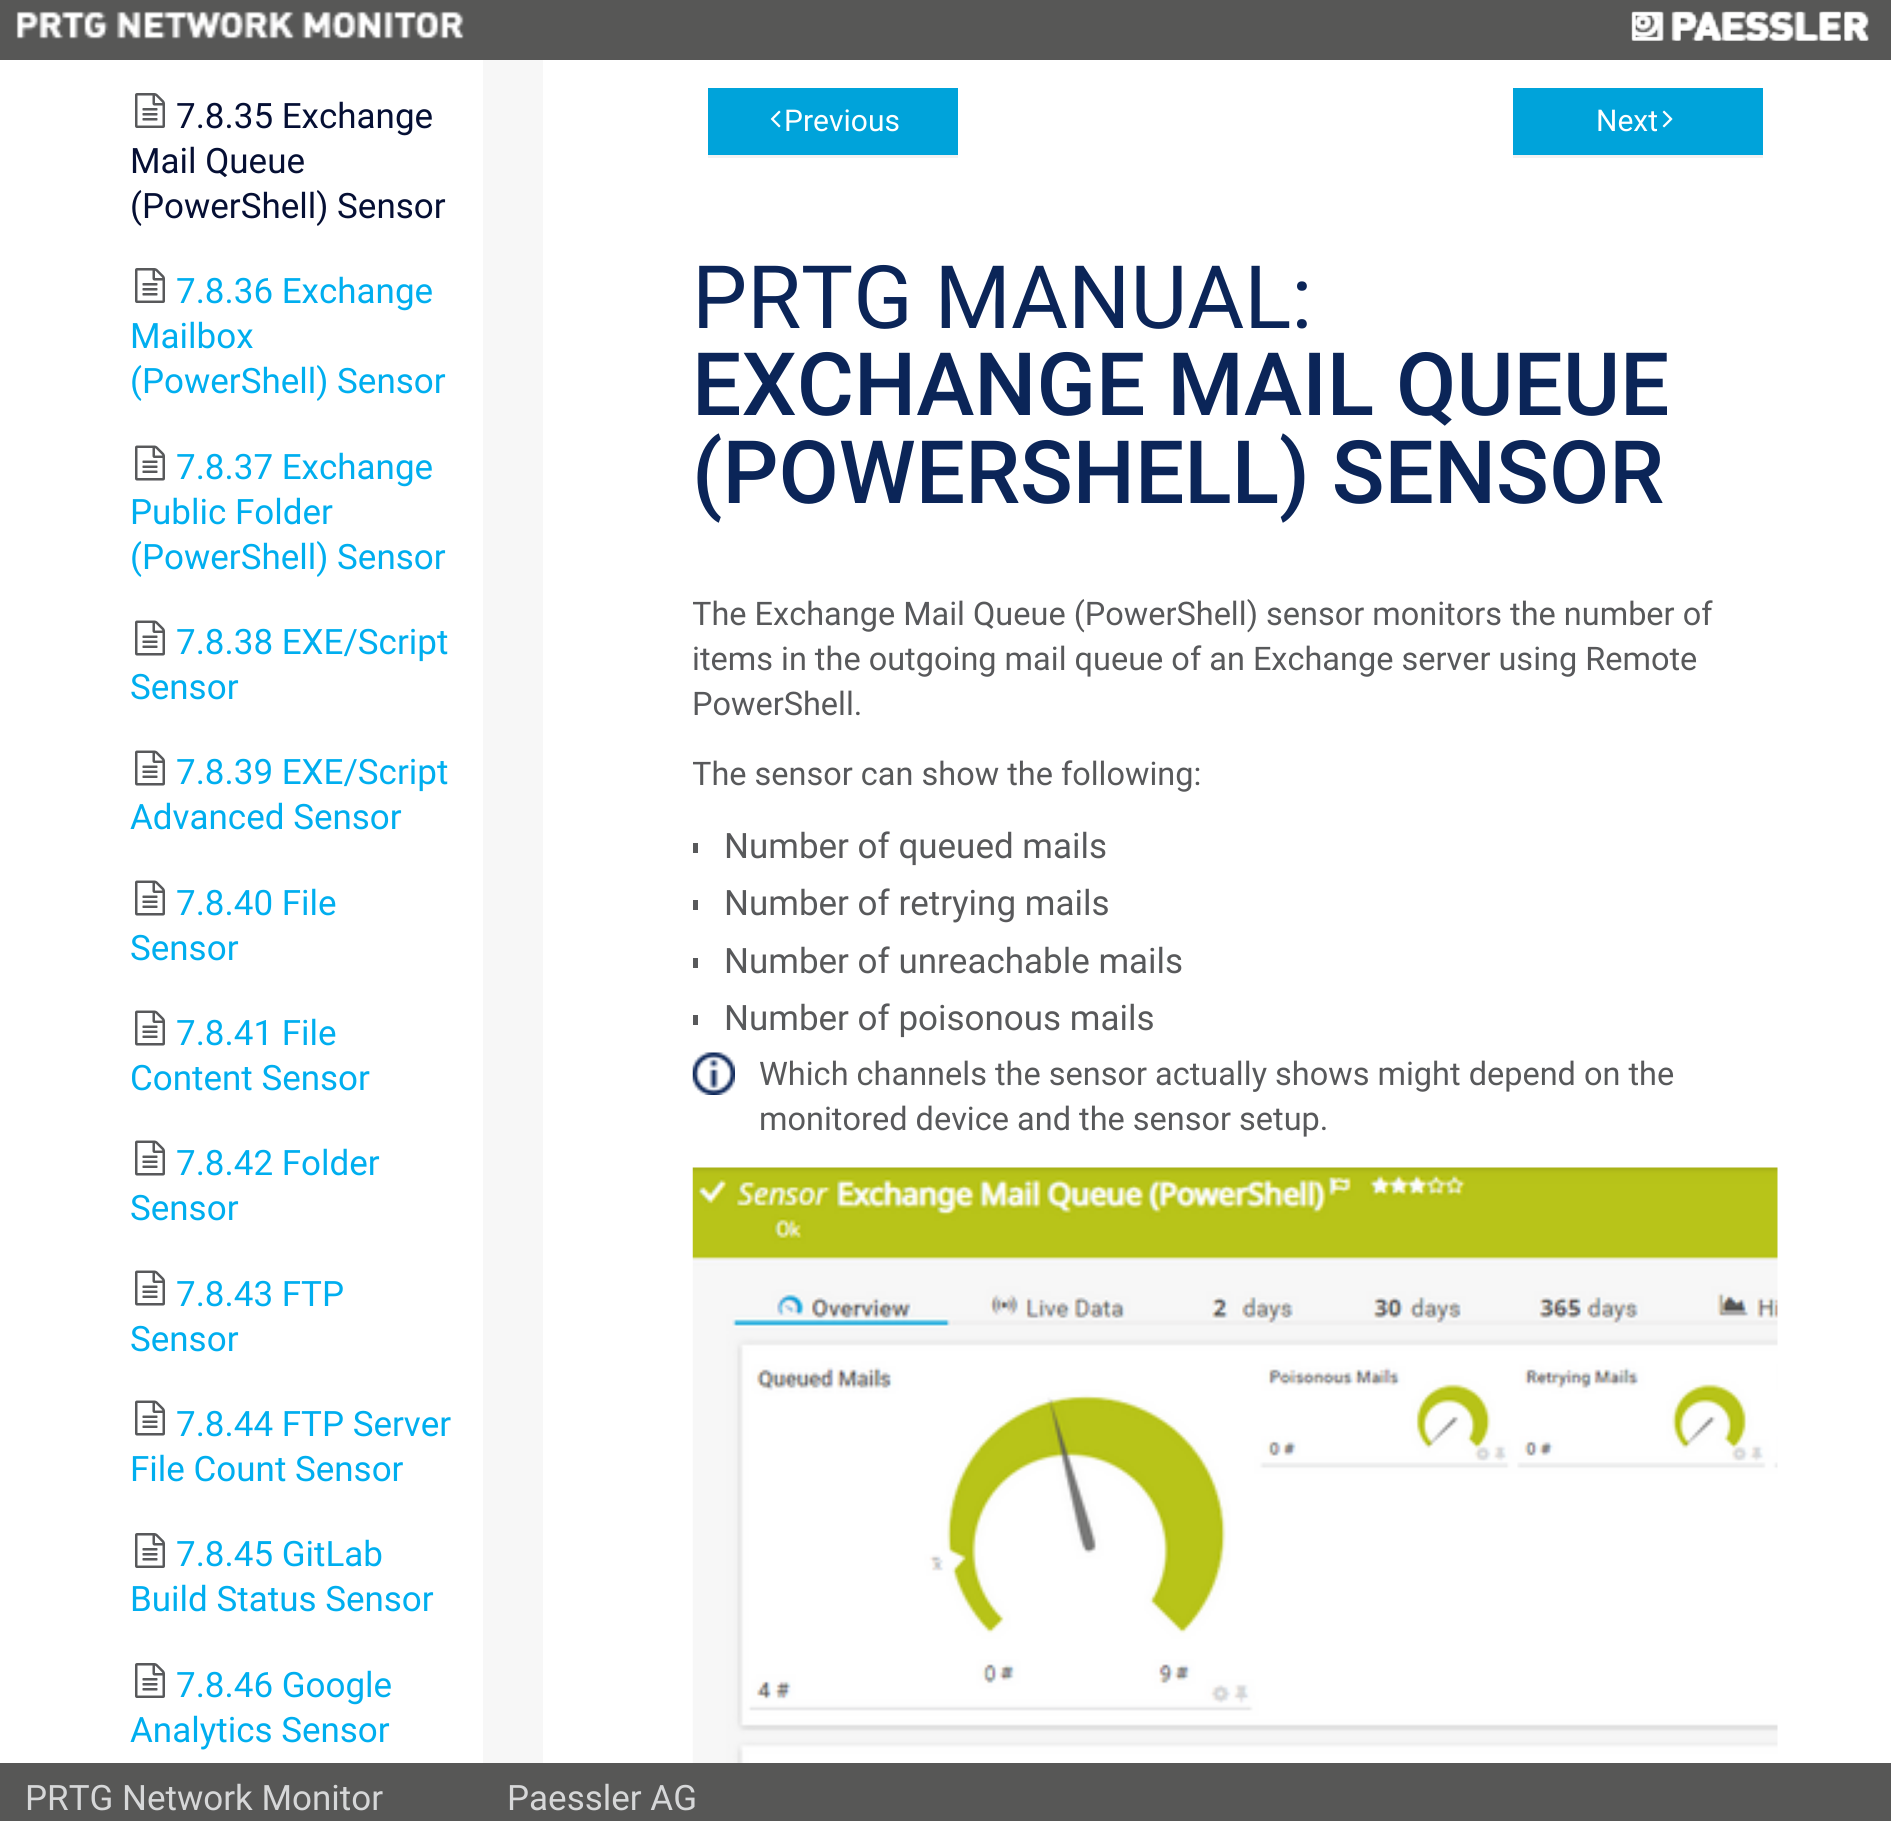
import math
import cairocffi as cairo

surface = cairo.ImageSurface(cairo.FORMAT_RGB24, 1891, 1821)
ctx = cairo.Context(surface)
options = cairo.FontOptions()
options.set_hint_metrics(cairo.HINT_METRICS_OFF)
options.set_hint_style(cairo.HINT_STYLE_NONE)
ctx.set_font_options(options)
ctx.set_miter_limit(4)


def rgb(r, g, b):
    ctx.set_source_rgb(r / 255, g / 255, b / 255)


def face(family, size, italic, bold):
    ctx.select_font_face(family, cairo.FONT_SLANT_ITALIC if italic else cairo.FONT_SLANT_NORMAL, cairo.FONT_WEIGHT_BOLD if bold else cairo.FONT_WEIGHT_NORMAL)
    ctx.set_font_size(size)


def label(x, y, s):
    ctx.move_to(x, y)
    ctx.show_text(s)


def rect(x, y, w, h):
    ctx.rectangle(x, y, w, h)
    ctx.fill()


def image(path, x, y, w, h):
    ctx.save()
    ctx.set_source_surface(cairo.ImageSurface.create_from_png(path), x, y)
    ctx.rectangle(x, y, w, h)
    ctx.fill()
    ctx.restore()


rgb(247, 247, 247)
ctx.paint()
rgb(87, 87, 86)
rect(0, 0, 1891, 60)
image('image0.png', 16, 11, 448, 28)
image('image1.png', 1631, 11, 238, 30)
image('image2.png', 1631, 11, 238, 30)
rgb(255, 255, 255)
rect(0, 60, 483, 1703)
image('image3.png', 135, 93, 30, 35)
face('Roboto', 35, 0, 0)
rgb(5, 15, 52)
label(176, 128, '7.8.35 Exchange')
label(130, 173, 'Mail Queue')
label(130, 218, '(PowerShell) Sensor')
image('image3.png', 135, 268, 30, 35)
rgb(0, 174, 239)
label(176, 303, '7.8.36 Exchange')
label(130, 348, 'Mailbox')
label(130, 393, '(PowerShell) Sensor')
image('image4.png', 135, 445, 30, 36)
label(176, 479, '7.8.37 Exchange')
label(130, 524, 'Public Folder')
label(130, 569, '(PowerShell) Sensor')
image('image4.png', 135, 620, 30, 36)
label(176, 654, '7.8.38 EXE/Script')
label(130, 699, 'Sensor')
image('image4.png', 135, 750, 30, 36)
label(176, 784, '7.8.39 EXE/Script')
label(130, 829, 'Advanced Sensor')
image('image4.png', 135, 880, 30, 36)
label(176, 915, '7.8.40 File')
label(130, 960, 'Sensor')
image('image4.png', 135, 1010, 30, 36)
label(176, 1045, '7.8.41 File')
label(130, 1090, 'Content Sensor')
image('image4.png', 135, 1140, 30, 36)
label(176, 1175, '7.8.42 Folder')
label(130, 1220, 'Sensor')
image('image4.png', 135, 1270, 30, 36)
label(176, 1306, '7.8.43 FTP')
label(130, 1351, 'Sensor')
image('image4.png', 135, 1400, 30, 36)
label(176, 1436, '7.8.44 FTP Server')
label(130, 1481, 'File Count Sensor')
image('image3.png', 135, 1533, 30, 35)
label(176, 1566, '7.8.45 GitLab')
label(130, 1611, 'Build Status Sensor')
image('image3.png', 135, 1663, 30, 35)
label(176, 1697, '7.8.46 Google')
label(130, 1742, 'Analytics Sensor')
rgb(255, 255, 255)
rect(543, 60, 1348, 1703)
rgb(242, 242, 242)
ctx.new_path()
ctx.move_to(708, 155)
ctx.line_to(708, 158)
ctx.line_to(958, 158)
ctx.line_to(958, 90)
ctx.line_to(958, 155)
ctx.close_path()
ctx.fill()
rgb(0, 163, 218)
rect(708, 88, 250, 67)
image('image5.png', 770, 110, 11, 18)
face('Roboto', 30, 0, 0)
rgb(255, 255, 255)
label(784, 131, 'Previous')
rgb(242, 242, 242)
ctx.new_path()
ctx.move_to(1513, 155)
ctx.line_to(1513, 158)
ctx.line_to(1763, 158)
ctx.line_to(1763, 90)
ctx.line_to(1762, 90)
ctx.line_to(1762, 155)
ctx.close_path()
ctx.fill()
rgb(0, 163, 218)
rect(1513, 88, 250, 67)
rgb(255, 255, 255)
label(1596, 131, 'Next')
image('image6.png', 1662, 110, 11, 18)
face('Roboto', 87.5, 0, 0)
rgb(11, 37, 88)
label(692, 328, 'PRTG MANUAL:')
face('Roboto Medium', 87.5, 0, 0)
label(692, 415, 'EXCHANGE MAIL QUEUE')
label(692, 503, '(POWERSHELL) SENSOR')
ctx.save()
ctx.rectangle(693, 593, 1085, 1172)
ctx.clip()
face('Roboto', 32.5, 0, 0)
rgb(88, 89, 91)
label(692, 625, 'The Exchange Mail Queue (PowerShell) sensor monitors the number of')
ctx.restore()
face('Roboto', 32.5, 0, 0)
rgb(88, 89, 91)
label(692, 670, 'items in the outgoing mail queue of an Exchange server using Remote')
label(692, 715, 'PowerShell.')
ctx.save()
ctx.rectangle(693, 593, 1085, 1172)
ctx.clip()
label(692, 785, 'The sensor can show the following:')
ctx.restore()
rect(693, 843, 5, 10)
face('Roboto', 35, 0, 0)
label(724, 858, 'Number of queued mails')
rect(693, 900, 5, 10)
label(724, 915, 'Number of retrying mails')
rect(693, 958, 5, 10)
label(724, 973, 'Number of unreachable mails')
rect(693, 1015, 5, 10)
label(724, 1030, 'Number of poisonous mails')
image('image7.png', 692, 1052, 43, 43)
face('Roboto', 32.5, 0, 0)
label(759, 1085, 'Which channels the sensor actually shows might depend on the')
label(759, 1130, 'monitored device and the sensor setup.')
image('image8.png', 692, 1167, 1086, 596)
rgb(87, 87, 86)
rect(0, 1763, 1891, 58)
face('Roboto', 35, 0, 0)
rgb(214, 215, 216)
label(25, 1810, 'PRTG Network Monitor')
label(507, 1810, 'Paessler AG')
surface.write_to_png('render.png')
